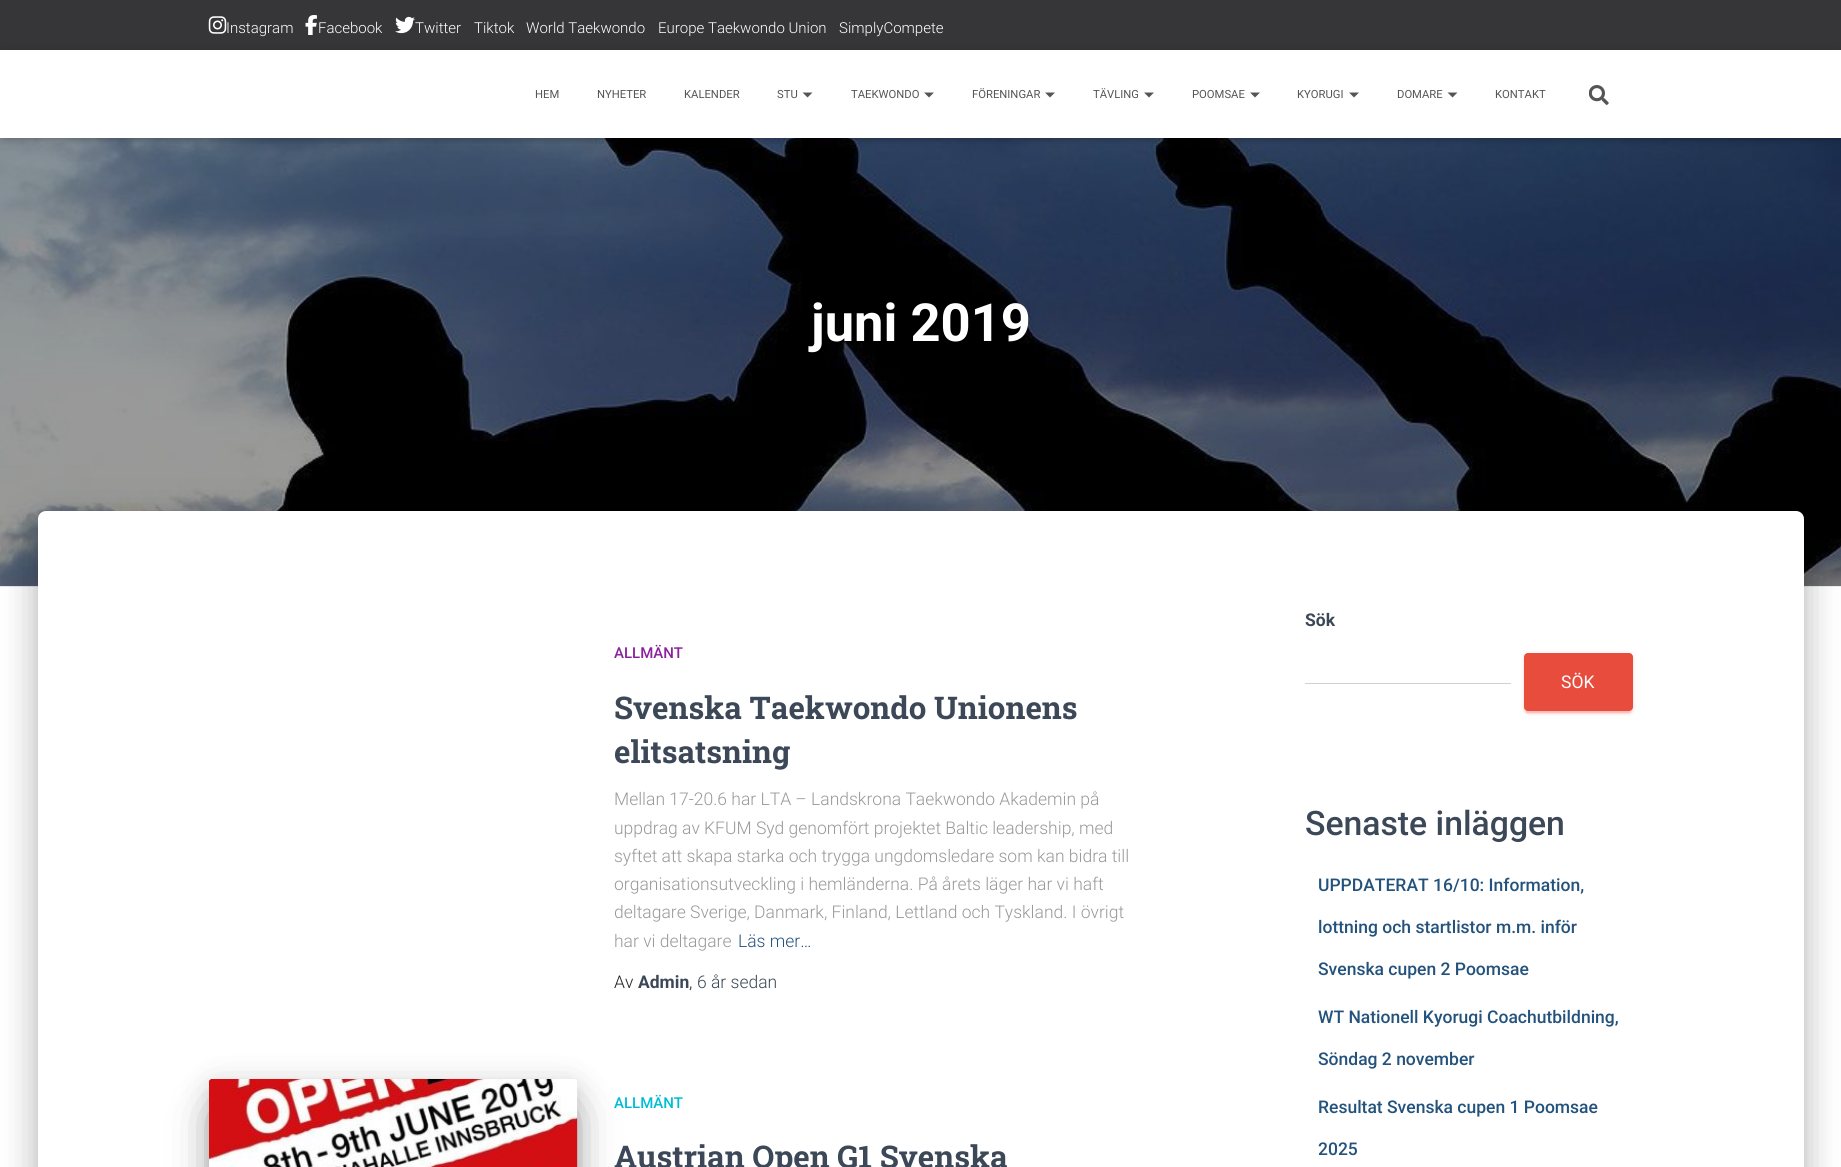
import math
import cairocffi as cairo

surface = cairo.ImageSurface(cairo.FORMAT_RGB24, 1841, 1167)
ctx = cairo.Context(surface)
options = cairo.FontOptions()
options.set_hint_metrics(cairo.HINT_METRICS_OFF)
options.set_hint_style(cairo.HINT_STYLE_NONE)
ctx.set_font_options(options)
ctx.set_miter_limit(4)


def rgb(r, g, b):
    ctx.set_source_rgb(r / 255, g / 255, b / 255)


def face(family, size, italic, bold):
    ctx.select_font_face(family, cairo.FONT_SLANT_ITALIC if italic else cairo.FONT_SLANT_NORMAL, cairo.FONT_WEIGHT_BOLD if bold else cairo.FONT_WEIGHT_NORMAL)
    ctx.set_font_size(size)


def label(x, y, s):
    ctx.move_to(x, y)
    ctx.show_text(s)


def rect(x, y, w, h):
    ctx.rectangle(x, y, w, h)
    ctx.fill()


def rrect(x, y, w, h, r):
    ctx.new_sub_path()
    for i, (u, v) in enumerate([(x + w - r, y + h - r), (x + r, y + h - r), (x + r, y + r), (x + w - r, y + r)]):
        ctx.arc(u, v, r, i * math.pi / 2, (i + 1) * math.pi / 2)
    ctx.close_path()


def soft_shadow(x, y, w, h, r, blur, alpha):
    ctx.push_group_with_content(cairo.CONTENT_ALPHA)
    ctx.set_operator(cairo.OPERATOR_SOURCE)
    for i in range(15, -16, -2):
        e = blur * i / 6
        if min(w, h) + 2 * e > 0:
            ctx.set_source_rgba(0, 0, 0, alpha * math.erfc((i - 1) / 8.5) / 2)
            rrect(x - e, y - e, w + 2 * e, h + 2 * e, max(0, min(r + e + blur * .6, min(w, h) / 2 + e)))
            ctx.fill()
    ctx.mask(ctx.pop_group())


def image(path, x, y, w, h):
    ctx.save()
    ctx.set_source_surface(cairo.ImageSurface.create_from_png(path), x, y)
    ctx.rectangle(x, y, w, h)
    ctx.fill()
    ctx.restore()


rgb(255, 255, 255)
ctx.paint()
rgb(54, 53, 55)
rect(0, 0, 1841, 50)
image('image0.png', 208, 16, 19, 18)
face('Roboto Light', 15, 0, 0)
rgb(255, 255, 255)
label(226, 33, 'Instagram')
image('image1.png', 305, 15, 12, 20)
label(318, 33, 'Facebook')
image('image2.png', 395, 16, 20, 18)
label(415, 33, 'Twitter')
label(474, 33, 'Tiktok')
label(526, 33, 'World Taekwondo')
label(658, 33, 'Europe Taekwondo Union')
label(839, 33, 'SimplyCompete')
image('image4.png', 0, 138, 1841, 449)
rgb(0, 0, 0)
soft_shadow(3, 58, 1836, 82, 0, 3, 0.1)
soft_shadow(0, 51, 1841, 88, 0, 6, 0.12)
soft_shadow(8, 59, 1826, 72, 0, 6, 0.42)
rgb(255, 255, 255)
rect(0, 50, 1841, 88)
face('Roboto', 11.25, 0, 0)
rgb(85, 85, 85)
label(535, 98, 'HEM')
label(597, 98, 'NYHETER')
label(684, 98, 'KALENDER')
label(777, 98, 'STU')
ctx.new_path()
ctx.move_to(802.5, 92.5)
ctx.line_to(812.5, 92.5)
ctx.line_to(807.5, 97.5)
ctx.close_path()
ctx.fill()
label(851, 98, 'TAEKWONDO')
ctx.new_path()
ctx.move_to(924, 92.5)
ctx.line_to(934, 92.5)
ctx.line_to(929, 97.5)
ctx.close_path()
ctx.fill()
label(972, 98, 'FÖRENINGAR')
ctx.new_path()
ctx.move_to(1045, 92.5)
ctx.line_to(1055, 92.5)
ctx.line_to(1050, 97.5)
ctx.close_path()
ctx.fill()
label(1093, 98, 'TÄVLING')
ctx.new_path()
ctx.move_to(1144, 92.5)
ctx.line_to(1154, 92.5)
ctx.line_to(1149, 97.5)
ctx.close_path()
ctx.fill()
label(1192, 98, 'POOMSAE')
ctx.new_path()
ctx.move_to(1250, 92.5)
ctx.line_to(1260, 92.5)
ctx.line_to(1255, 97.5)
ctx.close_path()
ctx.fill()
label(1297, 98, 'KYORUGI')
ctx.new_path()
ctx.move_to(1349, 92.5)
ctx.line_to(1359, 92.5)
ctx.line_to(1354, 97.5)
ctx.close_path()
ctx.fill()
label(1397, 98, 'DOMARE')
ctx.new_path()
ctx.move_to(1447.5, 92.5)
ctx.line_to(1457.5, 92.5)
ctx.line_to(1452.5, 97.5)
ctx.close_path()
ctx.fill()
label(1495, 98, 'KONTAKT')
image('image3.png', 1589, 85, 20, 20)
face('Roboto', 52.5, 0, 1)
rgb(255, 255, 255)
label(811, 341, 'juni 2019')
rgb(0, 0, 0)
soft_shadow(44, 528, 1754, 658, 1, 6, 0.2)
soft_shadow(31, 513, 1779, 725, 14, 19, 0.12)
soft_shadow(35, 529, 1771, 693, 10, 15, 0.14)
rgb(255, 255, 255)
ctx.new_path()
ctx.move_to(46, 511)
ctx.line_to(1796, 511)
ctx.curve_to(1800.5, 511, 1804, 514.5, 1804, 519)
ctx.line_to(1804, 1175)
ctx.line_to(38, 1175)
ctx.line_to(38, 519)
ctx.curve_to(38, 514.5, 41.5, 511, 46, 511)
ctx.close_path()
ctx.fill()
face('Roboto Medium', 15, 0, 0)
rgb(137, 34, 155)
label(614, 658, 'ALLMÄNT')
face('Roboto Slab', 31.25, 0, 1)
rgb(60, 72, 88)
label(614, 719, 'Svenska Taekwondo Unionens')
label(614, 763, 'elitsatsning')
face('Roboto Light', 17.5, 0, 0)
rgb(153, 153, 153)
label(614, 805, 'Mellan 17-20.6 har LTA – Landskrona Taekwondo Akademin på')
label(614, 834, 'uppdrag av KFUM Syd genomfört projektet Baltic leadership, med')
label(614, 862, 'syftet att skapa starka och trygga ungdomsledare som kan bidra till')
label(614, 890, 'organisationsutveckling i hemländerna. På årets läger har vi haft')
label(614, 918, 'deltagare Sverige, Danmark, Finland, Lettland och Tyskland. I övrigt')
label(614, 947, 'har vi deltagare')
rgb(35, 82, 124)
label(738, 947, 'Läs mer…')
rgb(33, 33, 33)
label(614, 988, 'Av')
face('Roboto', 17.5, 0, 1)
rgb(60, 72, 88)
label(638, 988, 'Admin')
face('Roboto Light', 17.5, 0, 0)
label(697, 988, '6 år sedan')
rgb(33, 33, 33)
label(689, 988, ',')
rgb(0, 0, 0)
soft_shadow(215, 1095, 356, 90, 0, 6, 0.2)
soft_shadow(209, 1084, 369, 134, 4, 15.5, 0.12)
soft_shadow(224, 1114, 339, 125, 0, 24, 0.56)
image('image5.png', 209, 1079, 369, 88)
face('Roboto Medium', 15, 0, 0)
rgb(0, 188, 212)
label(614, 1108, 'ALLMÄNT')
face('Roboto Slab', 31.25, 0, 1)
rgb(60, 72, 88)
label(614, 1168, 'Austrian Open G1 Svenska')
face('Roboto', 17.5, 0, 1)
label(1305, 626, 'Sök')
rgb(210, 210, 210)
rect(1305, 683, 206, 1)
rgb(231, 76, 60)
soft_shadow(1524, 654, 109, 59, 4, 3, 0.12)
soft_shadow(1526, 659, 104, 54, 1, 0.5, 0.2)
soft_shadow(1524, 655, 109, 59, 4, 1, 0.14)
rgb(231, 76, 60)
rrect(1524, 653, 109, 58, 4)
ctx.fill()
face('Roboto', 17.5, 0, 0)
rgb(255, 255, 255)
label(1561, 688, 'SÖK')
face('Roboto Medium', 33.75, 0, 0)
rgb(60, 72, 88)
label(1305, 835, 'Senaste inläggen')
face('Roboto Medium', 17.5, 0, 0)
rgb(35, 82, 124)
label(1318, 891, 'UPPDATERAT 16/10: Information,')
label(1318, 933, 'lottning och startlistor m.m. inför')
label(1318, 975, 'Svenska cupen 2 Poomsae')
label(1318, 1023, 'WT Nationell Kyorugi Coachutbildning,')
label(1318, 1065, 'Söndag 2 november')
label(1318, 1113, 'Resultat Svenska cupen 1 Poomsae')
label(1318, 1155, '2025')
surface.write_to_png('render.png')
